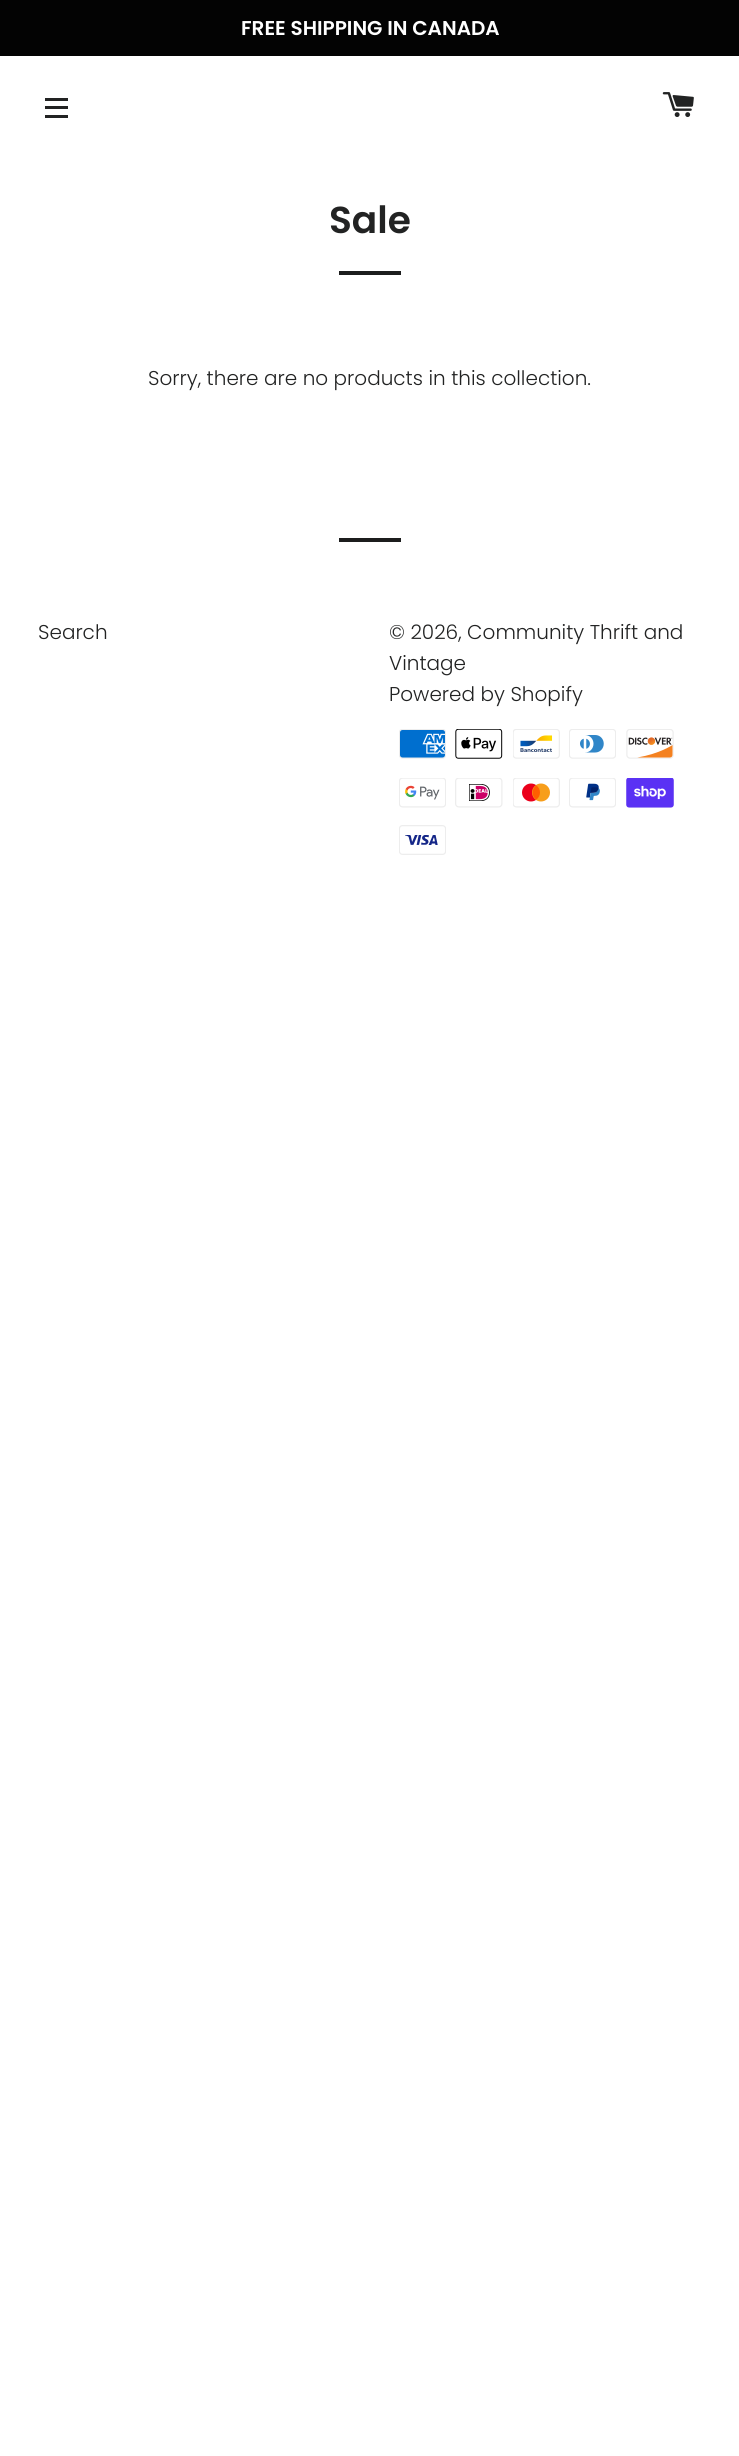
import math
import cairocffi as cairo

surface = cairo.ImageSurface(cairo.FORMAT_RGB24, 739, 2456)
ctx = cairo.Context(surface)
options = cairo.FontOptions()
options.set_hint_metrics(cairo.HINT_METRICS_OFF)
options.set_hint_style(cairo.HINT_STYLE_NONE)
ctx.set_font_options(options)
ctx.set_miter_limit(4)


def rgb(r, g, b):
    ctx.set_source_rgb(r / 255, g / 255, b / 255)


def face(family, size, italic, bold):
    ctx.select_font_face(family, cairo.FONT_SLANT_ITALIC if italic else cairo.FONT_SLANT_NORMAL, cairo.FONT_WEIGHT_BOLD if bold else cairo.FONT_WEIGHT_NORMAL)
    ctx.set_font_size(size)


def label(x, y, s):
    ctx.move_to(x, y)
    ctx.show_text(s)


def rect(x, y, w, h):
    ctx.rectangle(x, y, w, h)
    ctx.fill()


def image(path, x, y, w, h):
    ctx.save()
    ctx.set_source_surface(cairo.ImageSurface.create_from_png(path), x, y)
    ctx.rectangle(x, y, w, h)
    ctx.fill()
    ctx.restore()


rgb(255, 255, 255)
ctx.paint()
rgb(3, 3, 3)
rect(0, 0, 739, 56)
face('Poppins SemiBold', 20, 0, 0)
rgb(255, 255, 255)
label(241, 35, 'FREE SHIPPING IN CANADA')
rgb(34, 35, 35)
rect(45, 98, 23, 3)
rect(45, 106, 23, 3)
rect(45, 115, 23, 3)
image('image0.png', 662, 92, 32, 25)
face('Poppins SemiBold', 37.5, 0, 0)
label(329, 233, 'Sale')
rgb(28, 29, 29)
rect(339, 271, 62, 4)
face('Poppins Light', 20, 0, 0)
rgb(34, 35, 35)
label(148, 385, 'Sorry, there are no products in this collection.')
rgb(28, 29, 29)
rect(339, 538, 62, 4)
rgb(34, 35, 35)
label(38, 639, 'Search')
label(389, 639, '© 2026, Community Thrift and')
label(389, 670, 'Vintage')
label(389, 701, 'Powered by Shopify')
image('image1.png', 399, 729, 47, 30)
image('image2.png', 455, 729, 48, 30)
image('image3.png', 513, 729, 47, 30)
image('image4.png', 569, 729, 47, 30)
image('image5.png', 626, 729, 48, 30)
image('image6.png', 399, 778, 47, 30)
image('image7.png', 455, 778, 48, 30)
image('image8.png', 513, 778, 47, 30)
image('image9.png', 569, 778, 47, 30)
image('image10.png', 626, 778, 48, 30)
image('image11.png', 399, 825, 47, 30)
surface.write_to_png('render.png')
